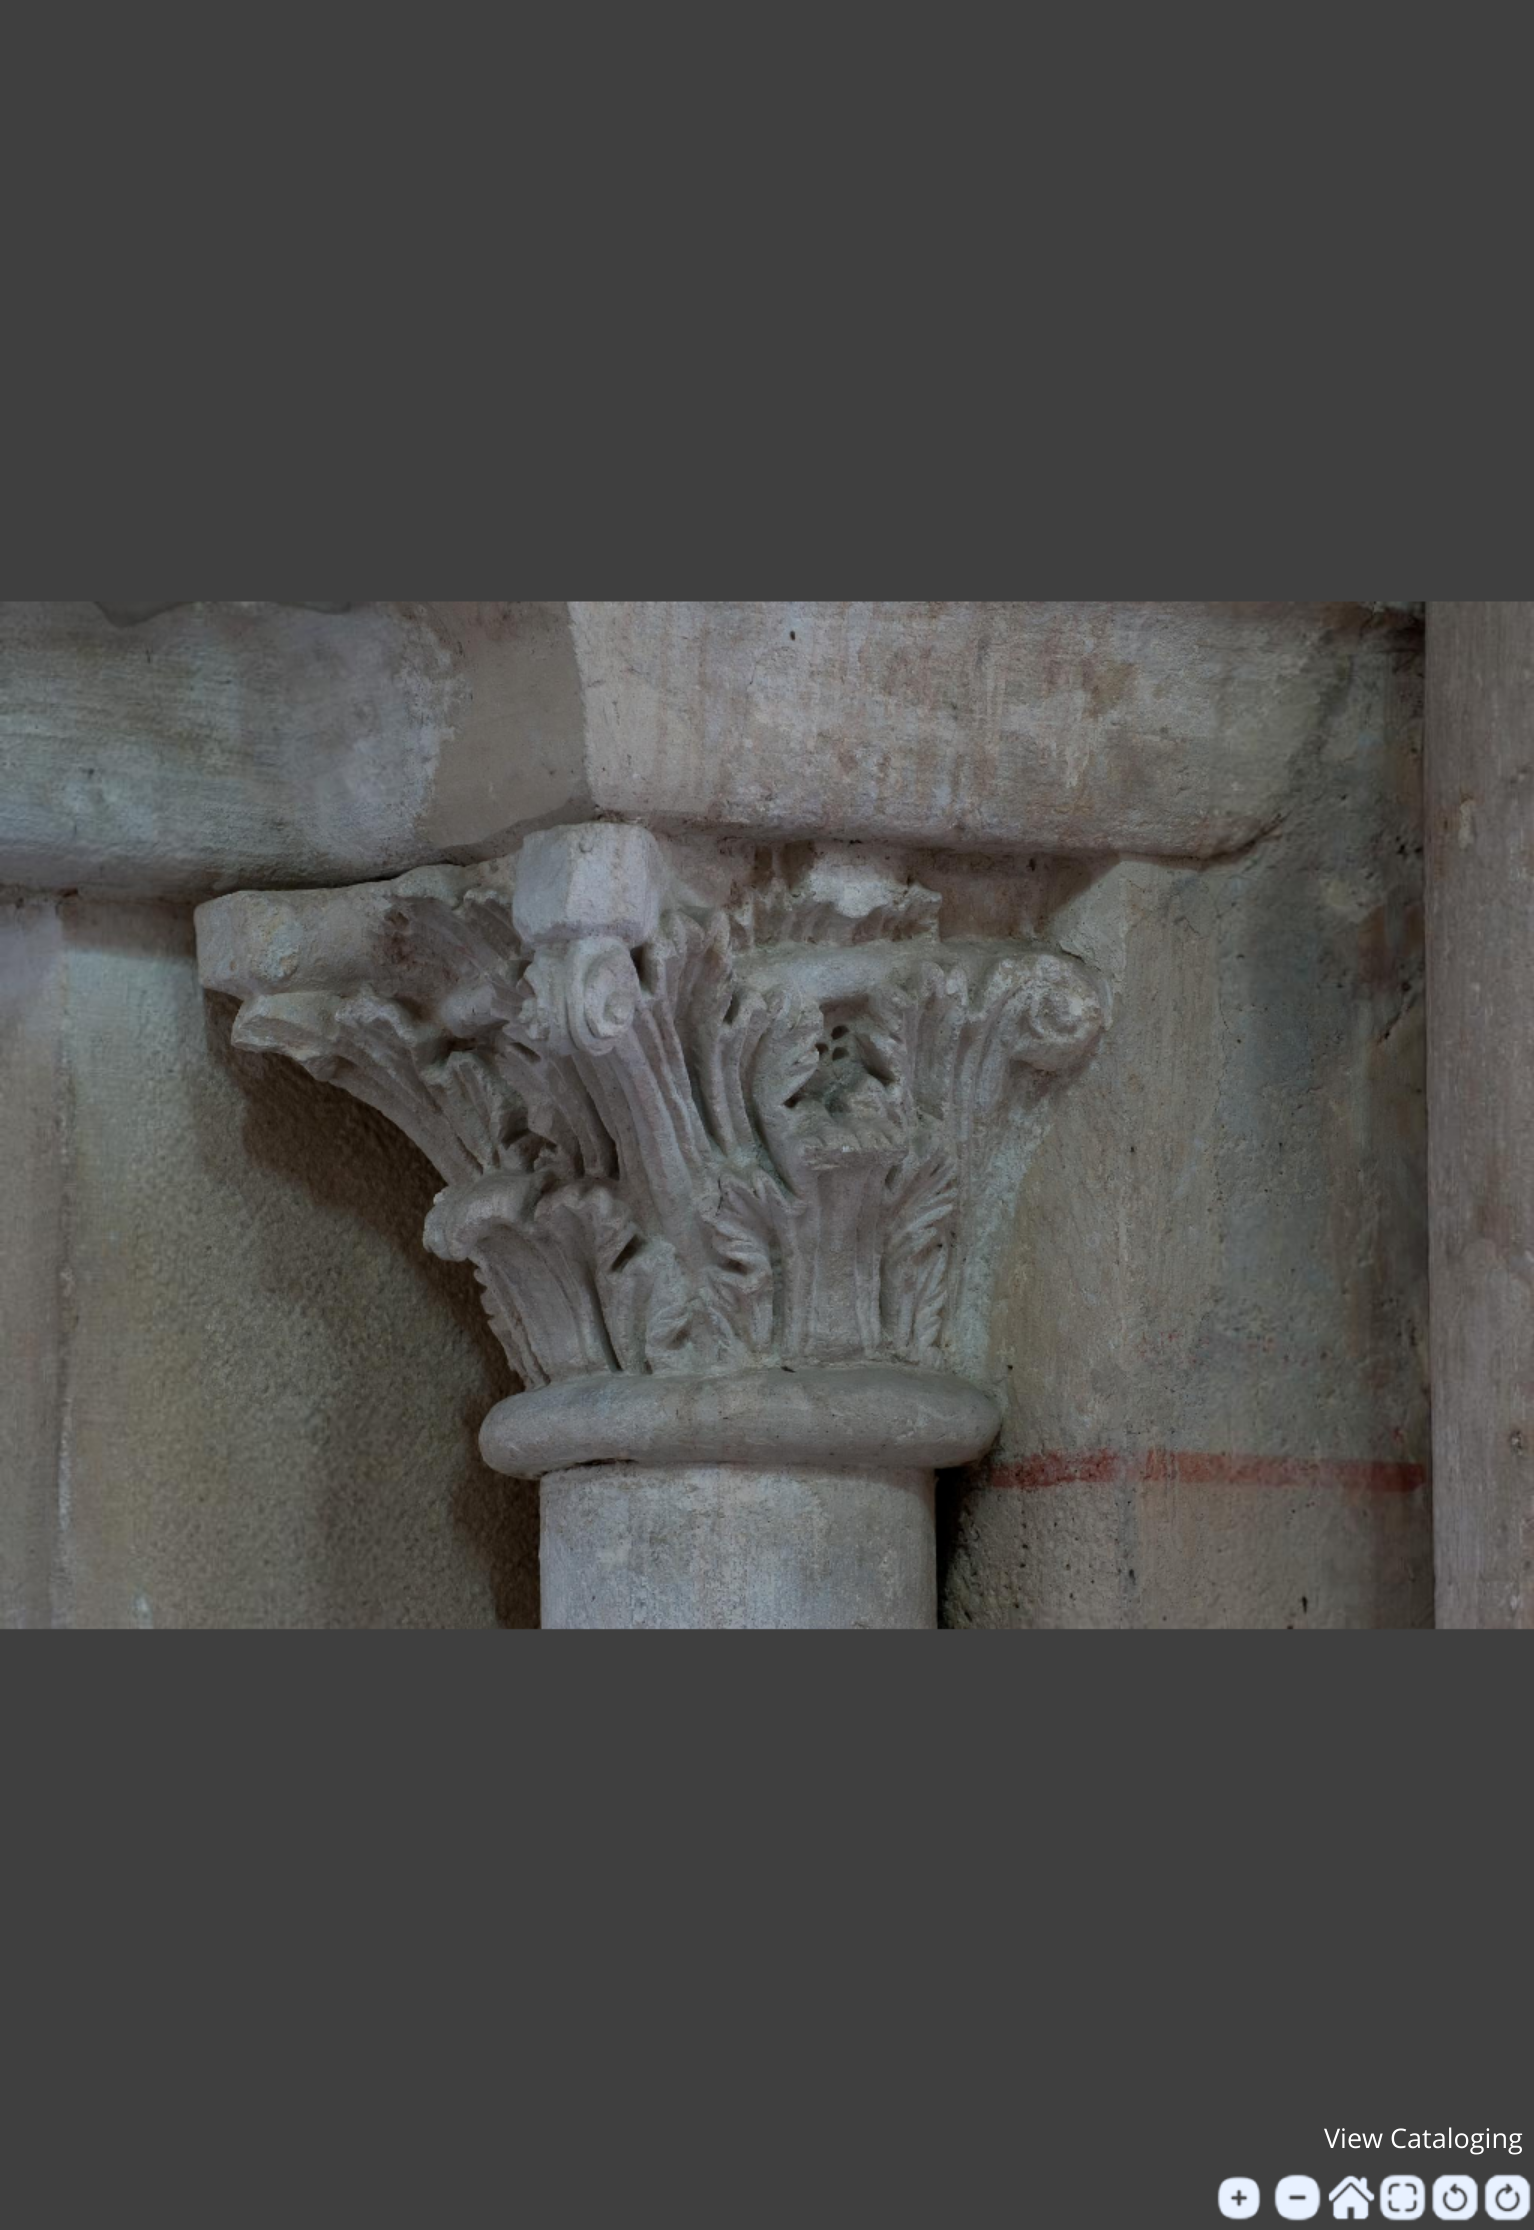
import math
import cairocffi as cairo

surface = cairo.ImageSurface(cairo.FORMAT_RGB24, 1534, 2230)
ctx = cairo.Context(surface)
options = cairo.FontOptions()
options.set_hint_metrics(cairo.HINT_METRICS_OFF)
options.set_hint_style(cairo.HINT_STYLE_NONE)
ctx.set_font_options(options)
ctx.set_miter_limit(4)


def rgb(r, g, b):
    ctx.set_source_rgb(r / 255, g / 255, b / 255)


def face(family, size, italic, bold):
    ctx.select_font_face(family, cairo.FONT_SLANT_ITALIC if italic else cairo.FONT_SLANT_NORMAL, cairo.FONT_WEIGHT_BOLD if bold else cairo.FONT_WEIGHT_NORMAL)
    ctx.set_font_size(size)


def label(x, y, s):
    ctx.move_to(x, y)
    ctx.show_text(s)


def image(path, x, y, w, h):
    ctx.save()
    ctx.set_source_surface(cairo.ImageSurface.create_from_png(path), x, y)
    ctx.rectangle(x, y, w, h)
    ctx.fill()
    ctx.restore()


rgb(63, 63, 63)
ctx.paint()
image('image0.png', 0, 601, 1534, 1029)
image('image1.png', 1217, 2176, 44, 45)
image('image2.png', 1217, 2176, 44, 44)
image('image3.png', 1273, 2173, 49, 49)
image('image4.png', 1274, 2174, 47, 47)
image('image5.png', 1328, 2175, 47, 46)
image('image6.png', 1328, 2175, 47, 45)
image('image7.png', 1378, 2173, 49, 49)
image('image8.png', 1379, 2174, 47, 47)
image('image9.png', 1431, 2173, 48, 49)
image('image10.png', 1432, 2174, 46, 47)
image('image11.png', 1483, 2173, 49, 49)
image('image12.png', 1484, 2174, 47, 47)
face('Open Sans', 27, 0, 0)
rgb(255, 255, 255)
label(1324, 2148, 'View Cataloging')
surface.write_to_png('render.png')
